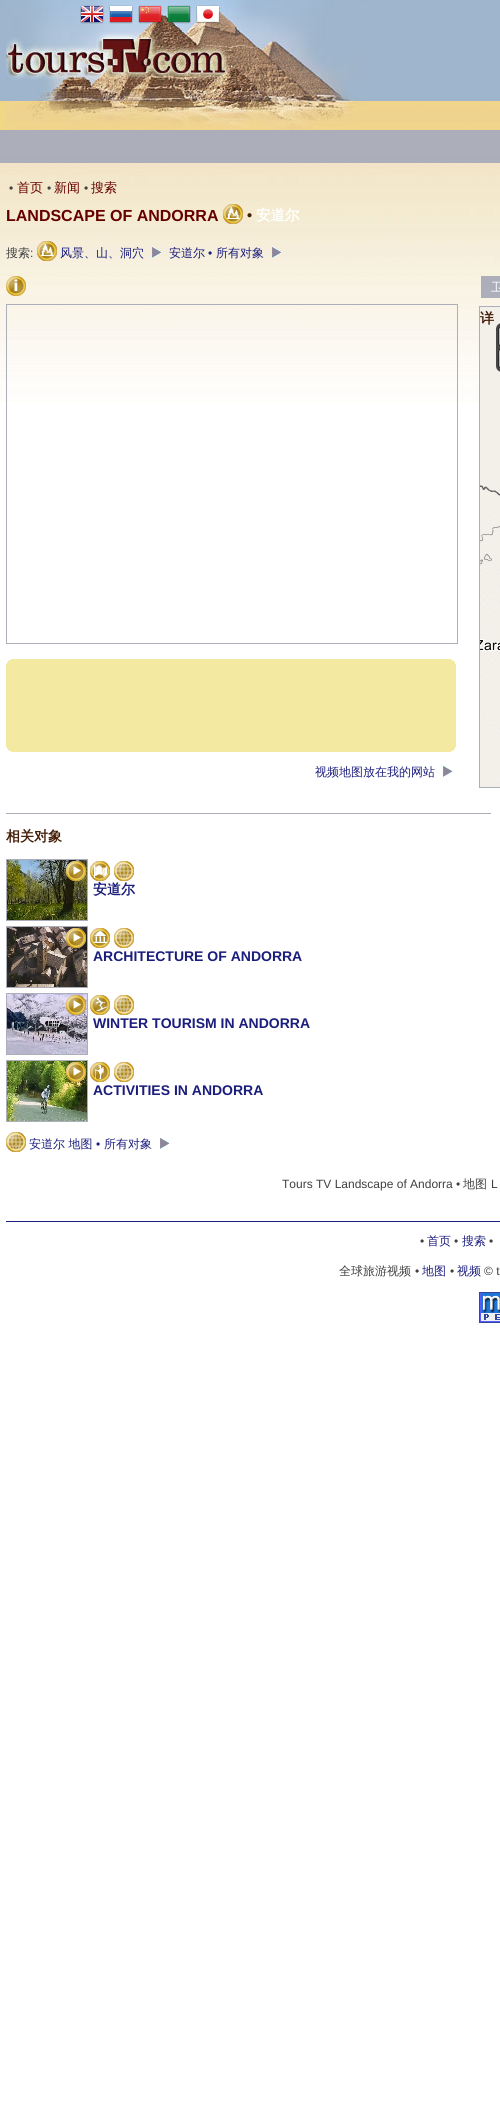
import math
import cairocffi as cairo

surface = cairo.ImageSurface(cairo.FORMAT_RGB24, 500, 2122)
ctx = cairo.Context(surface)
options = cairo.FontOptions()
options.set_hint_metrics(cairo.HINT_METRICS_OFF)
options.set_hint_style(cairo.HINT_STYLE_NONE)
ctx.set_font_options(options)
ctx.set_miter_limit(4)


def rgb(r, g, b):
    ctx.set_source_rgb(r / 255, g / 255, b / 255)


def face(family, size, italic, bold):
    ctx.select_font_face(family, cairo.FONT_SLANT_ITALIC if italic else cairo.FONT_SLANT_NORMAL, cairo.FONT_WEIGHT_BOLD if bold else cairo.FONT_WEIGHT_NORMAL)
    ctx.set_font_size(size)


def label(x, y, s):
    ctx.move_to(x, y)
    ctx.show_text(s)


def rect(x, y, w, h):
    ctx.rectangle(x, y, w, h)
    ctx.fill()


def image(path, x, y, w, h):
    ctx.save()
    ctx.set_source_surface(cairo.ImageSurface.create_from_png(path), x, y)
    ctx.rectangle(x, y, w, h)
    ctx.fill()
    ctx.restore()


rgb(255, 255, 255)
ctx.paint()
image('image0.png', 0, 0, 500, 402)
image('image1.png', 6, 0, 494, 130)
image('image2.png', 80, 5, 24, 19)
image('image3.png', 109, 5, 24, 19)
image('image4.png', 138, 5, 24, 19)
image('image5.png', 167, 5, 24, 19)
image('image6.png', 196, 5, 24, 19)
face('Liberation Sans', 12, 0, 0)
rgb(64, 64, 64)
label(9, 192, '•')
face('WenQuanYi Zen Hei Medium', 13, 0, 0)
rgb(102, 0, 0)
label(17, 192, '首页')
face('Liberation Sans', 12, 0, 0)
rgb(64, 64, 64)
label(47, 192, '•')
face('WenQuanYi Zen Hei Medium', 13, 0, 0)
rgb(102, 0, 0)
label(54, 192, '新闻')
face('Liberation Sans', 12, 0, 0)
rgb(64, 64, 64)
label(84, 192, '•')
face('WenQuanYi Zen Hei Medium', 13, 0, 0)
rgb(102, 0, 0)
label(91, 192, '搜索')
face('Liberation Sans', 16, 0, 1)
label(6, 221, 'LANDSCAPE OF ANDORRA')
image('image7.png', 223, 204, 20, 20)
face('Liberation Sans', 14.5, 0, 1)
rgb(69, 30, 9)
label(247, 220, '•')
face('WenQuanYi Zen Hei', 14.5, 0, 1)
rgb(255, 255, 255)
label(256, 220, '安道尔')
face('WenQuanYi Zen Hei Medium', 12, 0, 0)
rgb(64, 64, 64)
label(6, 257, '搜索')
face('Liberation Sans', 12, 0, 0)
label(30, 257, ':')
image('image8.png', 37, 241, 20, 20)
face('WenQuanYi Zen Hei Medium', 12, 0, 0)
rgb(27, 29, 124)
label(60, 257, '风景、山、洞穴')
image('image9.png', 152, 246, 10, 12)
label(169, 257, '安道尔')
face('Liberation Sans', 12, 0, 0)
label(208, 257, '•')
face('WenQuanYi Zen Hei Medium', 12, 0, 0)
label(216, 257, '所有对象')
image('image10.png', 272, 246, 10, 12)
rgb(172, 174, 186)
rect(481, 276, 19, 22)
rgb(255, 255, 255)
label(491, 291, '卫')
ctx.rectangle(479.5, 306.5, 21, 481)
rgb(172, 174, 186)
ctx.set_line_width(1)
ctx.stroke()
image('image11.png', 480, 307, 20, 480)
face('WenQuanYi Zen Hei', 14, 0, 1)
rgb(69, 30, 9)
label(480, 323, '详')
image('image12.png', 6, 276, 20, 20)
ctx.rectangle(6.5, 304.5, 451, 339)
rgb(172, 174, 186)
ctx.stroke()
rgb(244, 233, 160)
rect(11, 659, 440, 1)
rect(9, 660, 444, 1)
rect(8, 661, 446, 1)
rect(7, 662, 448, 2)
rect(6, 664, 450, 83)
rect(7, 747, 448, 2)
rect(8, 749, 446, 1)
rect(9, 750, 444, 1)
rect(11, 751, 440, 1)
face('WenQuanYi Zen Hei Medium', 12, 0, 0)
rgb(27, 29, 124)
label(315, 776, '视频地图放在我的网站')
image('image13.png', 443, 765, 10, 12)
rgb(172, 174, 186)
rect(6, 813, 485, 1)
face('WenQuanYi Zen Hei', 14, 0, 1)
rgb(69, 30, 9)
label(6, 841, '相关对象')
ctx.rectangle(6.5, 859.5, 81, 61)
rgb(172, 174, 186)
ctx.stroke()
image('image14.png', 7, 860, 80, 60)
image('image15.png', 66, 861, 20, 20)
image('image16.png', 90, 861, 20, 20)
image('image17.png', 114, 861, 20, 20)
rgb(27, 29, 124)
label(93, 894, '安道尔')
ctx.rectangle(6.5, 926.5, 81, 61)
rgb(172, 174, 186)
ctx.stroke()
image('image18.png', 7, 927, 80, 60)
image('image19.png', 66, 928, 20, 20)
image('image20.png', 90, 928, 20, 20)
image('image17.png', 114, 928, 20, 20)
face('Liberation Sans', 14, 0, 1)
rgb(27, 29, 124)
label(93, 961, 'ARCHITECTURE OF ANDORRA')
ctx.rectangle(6.5, 993.5, 81, 61)
rgb(172, 174, 186)
ctx.stroke()
image('image21.png', 7, 994, 80, 60)
image('image22.png', 66, 995, 20, 20)
image('image23.png', 90, 995, 20, 20)
image('image17.png', 114, 995, 20, 20)
rgb(27, 29, 124)
label(93, 1028, 'WINTER TOURISM IN ANDORRA')
ctx.rectangle(6.5, 1060.5, 81, 61)
rgb(172, 174, 186)
ctx.stroke()
image('image24.png', 7, 1061, 80, 60)
image('image25.png', 66, 1062, 20, 20)
image('image26.png', 90, 1062, 20, 20)
image('image17.png', 114, 1062, 20, 20)
rgb(27, 29, 124)
label(93, 1095, 'ACTIVITIES IN ANDORRA')
image('image17.png', 6, 1132, 20, 20)
face('WenQuanYi Zen Hei Medium', 12, 0, 0)
label(29, 1148, '安道尔 地图')
face('Liberation Sans', 12, 0, 0)
label(96, 1148, '•')
face('WenQuanYi Zen Hei Medium', 12, 0, 0)
label(104, 1148, '所有对象')
image('image13.png', 160, 1137, 10, 12)
face('Liberation Sans', 12, 0, 0)
rgb(64, 64, 64)
label(282, 1188, 'Tours TV Landscape of Andorra •')
face('WenQuanYi Zen Hei Medium', 12, 0, 0)
label(463, 1188, '地图')
face('Liberation Sans', 12, 0, 0)
label(491, 1188, 'L')
rgb(27, 29, 124)
rect(6, 1221, 494, 1)
rgb(64, 64, 64)
label(420, 1245, '•')
face('WenQuanYi Zen Hei Medium', 12, 0, 0)
rgb(27, 29, 124)
label(427, 1245, '首页')
face('Liberation Sans', 12, 0, 0)
rgb(64, 64, 64)
label(454, 1245, '•')
face('WenQuanYi Zen Hei Medium', 12, 0, 0)
rgb(27, 29, 124)
label(462, 1245, '搜索')
face('Liberation Sans', 12, 0, 0)
rgb(64, 64, 64)
label(489, 1245, '•')
face('WenQuanYi Zen Hei Medium', 12, 0, 0)
label(339, 1275, '全球旅游视频')
face('Liberation Sans', 12, 0, 0)
label(415, 1275, '•')
face('WenQuanYi Zen Hei Medium', 12, 0, 0)
rgb(27, 29, 124)
label(422, 1275, '地图')
face('Liberation Sans', 12, 0, 0)
rgb(64, 64, 64)
label(450, 1275, '•')
face('WenQuanYi Zen Hei Medium', 12, 0, 0)
rgb(27, 29, 124)
label(457, 1275, '视频')
face('Liberation Sans', 12, 0, 0)
rgb(64, 64, 64)
label(484, 1275, '© t')
image('image27.png', 479, 1292, 21, 31)
surface.write_to_png('render.png')
